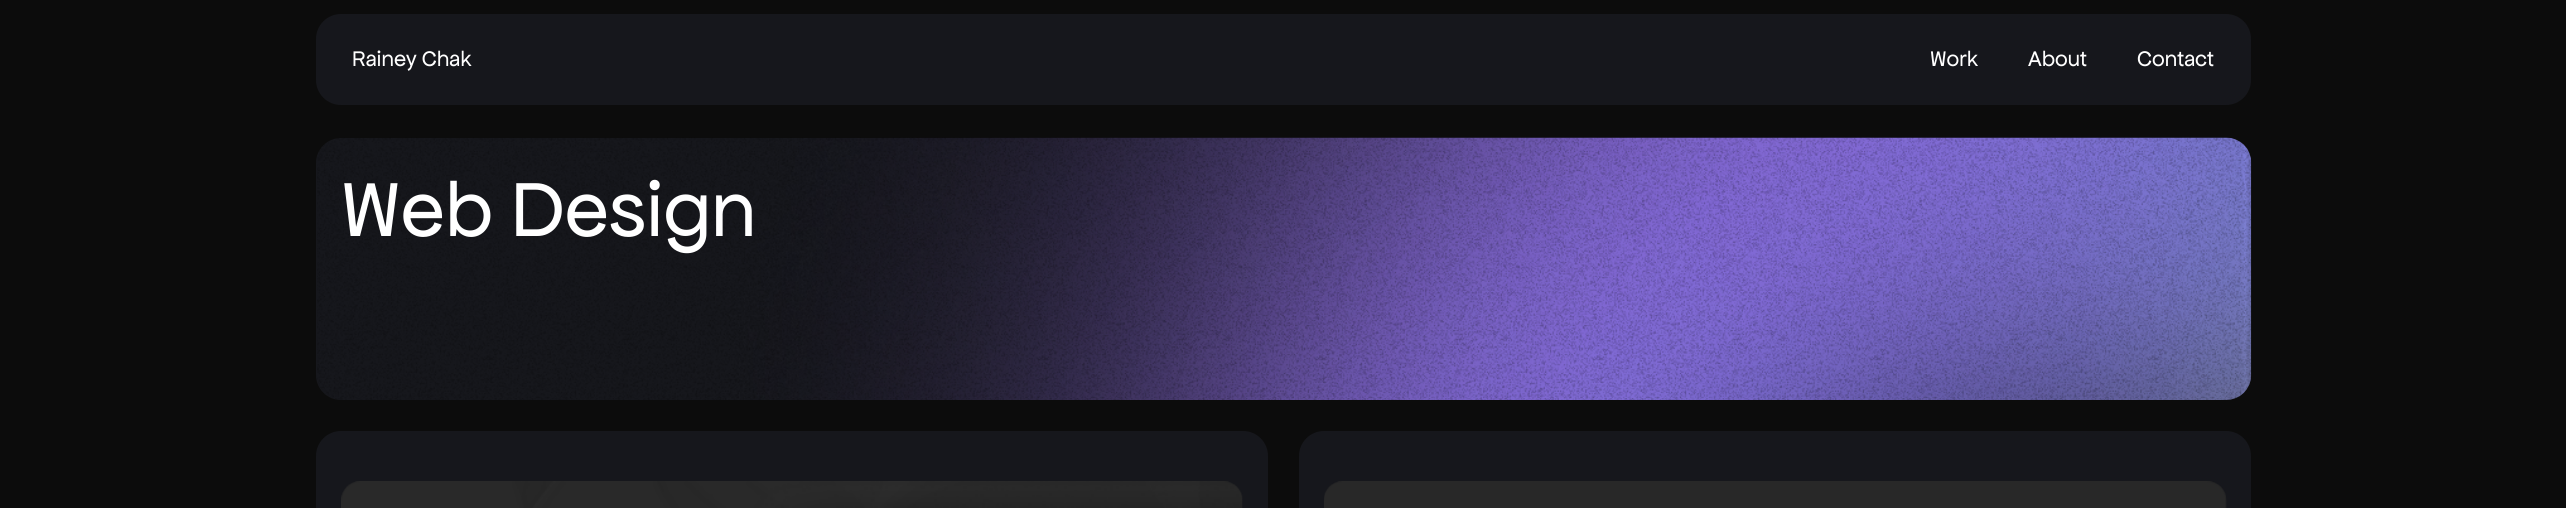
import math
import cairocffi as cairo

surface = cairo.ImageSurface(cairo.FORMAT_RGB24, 2566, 508)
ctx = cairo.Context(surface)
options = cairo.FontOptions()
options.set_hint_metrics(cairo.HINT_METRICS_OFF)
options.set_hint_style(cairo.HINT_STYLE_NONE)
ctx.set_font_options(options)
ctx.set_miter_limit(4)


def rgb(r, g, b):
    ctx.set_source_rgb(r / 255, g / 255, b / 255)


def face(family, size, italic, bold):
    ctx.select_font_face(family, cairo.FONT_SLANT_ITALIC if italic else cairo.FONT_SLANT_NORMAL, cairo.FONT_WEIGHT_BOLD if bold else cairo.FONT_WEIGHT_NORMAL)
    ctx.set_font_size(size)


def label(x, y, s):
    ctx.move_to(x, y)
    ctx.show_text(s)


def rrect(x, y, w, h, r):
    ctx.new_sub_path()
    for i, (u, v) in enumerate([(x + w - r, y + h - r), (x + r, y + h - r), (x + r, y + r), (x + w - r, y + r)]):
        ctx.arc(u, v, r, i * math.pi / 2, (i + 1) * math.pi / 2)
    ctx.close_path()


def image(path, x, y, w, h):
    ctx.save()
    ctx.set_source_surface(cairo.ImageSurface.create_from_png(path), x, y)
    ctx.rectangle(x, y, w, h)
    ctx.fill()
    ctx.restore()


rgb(12, 12, 12)
ctx.paint()
rgb(22, 23, 28)
rrect(316, 14, 1935, 91, 25)
ctx.fill()
face('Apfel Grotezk', 22.5, 0, 0)
rgb(255, 255, 255)
label(352, 66, 'Rainey Chak')
label(1930, 66, 'Work')
label(2028, 66, 'About')
label(2137, 66, 'Contact')
rgb(22, 23, 28)
rrect(316, 138, 1935, 262, 25)
ctx.fill()
image('image0.png', 317, 137, 1935, 263)
face('Apfel Grotezk', 81.25, 0, 0)
rgb(255, 255, 255)
label(341, 236, 'Web Design')
rgb(22, 23, 28)
rrect(316, 431, 952, 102, 25)
ctx.fill()
image('image1.png', 341, 481, 902, 27)
rrect(1299, 431, 952, 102, 25)
ctx.fill()
image('image2.png', 1324, 481, 903, 27)
surface.write_to_png('render.png')
